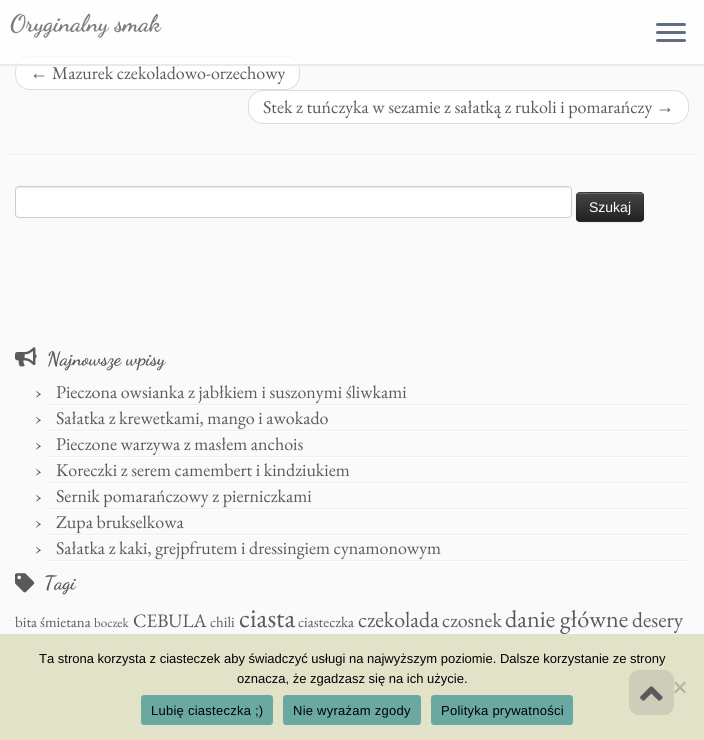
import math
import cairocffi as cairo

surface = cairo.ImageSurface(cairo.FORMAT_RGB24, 704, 740)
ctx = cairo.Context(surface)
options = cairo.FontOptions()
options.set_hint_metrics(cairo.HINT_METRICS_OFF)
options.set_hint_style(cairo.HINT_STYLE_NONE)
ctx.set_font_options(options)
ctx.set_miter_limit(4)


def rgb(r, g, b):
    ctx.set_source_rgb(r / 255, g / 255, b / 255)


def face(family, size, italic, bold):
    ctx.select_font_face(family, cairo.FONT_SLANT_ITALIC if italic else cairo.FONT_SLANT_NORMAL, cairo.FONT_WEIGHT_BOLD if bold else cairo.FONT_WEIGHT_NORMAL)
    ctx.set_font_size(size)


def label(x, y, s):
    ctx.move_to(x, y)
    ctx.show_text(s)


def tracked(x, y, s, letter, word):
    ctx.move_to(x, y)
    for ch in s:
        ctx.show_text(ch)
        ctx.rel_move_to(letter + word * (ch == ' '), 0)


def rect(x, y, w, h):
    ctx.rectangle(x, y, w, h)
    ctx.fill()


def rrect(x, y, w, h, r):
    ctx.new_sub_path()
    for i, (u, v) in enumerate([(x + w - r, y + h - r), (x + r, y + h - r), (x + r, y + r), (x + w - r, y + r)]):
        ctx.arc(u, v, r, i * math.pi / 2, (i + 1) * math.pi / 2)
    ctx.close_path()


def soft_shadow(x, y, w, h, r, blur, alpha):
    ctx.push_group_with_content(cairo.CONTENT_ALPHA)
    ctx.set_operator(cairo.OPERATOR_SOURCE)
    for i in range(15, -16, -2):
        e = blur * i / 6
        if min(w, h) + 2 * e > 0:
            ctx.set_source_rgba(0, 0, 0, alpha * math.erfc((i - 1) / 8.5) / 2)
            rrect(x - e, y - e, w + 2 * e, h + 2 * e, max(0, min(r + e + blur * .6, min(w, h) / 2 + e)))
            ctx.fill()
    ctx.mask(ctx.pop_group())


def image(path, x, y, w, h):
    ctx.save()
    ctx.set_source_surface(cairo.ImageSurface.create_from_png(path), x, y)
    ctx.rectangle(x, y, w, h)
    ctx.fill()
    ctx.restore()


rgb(250, 250, 250)
ctx.paint()
rgb(238, 238, 238)
rect(10, 5, 684, 1)
rgb(255, 255, 255)
rect(10, 6, 684, 1)
rrect(15.5, 56.5, 284, 33, 14.5)
ctx.fill_preserve()
rgb(221, 221, 221)
ctx.set_line_width(1)
ctx.stroke()
ctx.set_source_rgba(1, 1, 1, 0.8)
rect(0, 0, 704, 64)
rgb(233, 234, 238)
rect(0, 64, 704, 2)
face('Dancing Script', 24, 0, 1)
rgb(123, 123, 123)
label(10, 31, 'Oryginalny smak')
rgb(95, 111, 129)
rrect(656, 23, 30, 3, 1.5)
ctx.fill()
rrect(656, 31, 30, 3, 1.5)
ctx.fill()
rrect(656, 39, 30, 3, 1.5)
ctx.fill()
face('Liberation Serif', 18, 0, 0)
rgb(90, 90, 90)
label(30, 79, '←')
face('EB Garamond', 18, 0, 0)
label(52, 79, 'Mazurek czekoladowo-orzechowy')
rgb(255, 255, 255)
rrect(248.5, 90.5, 440, 33, 14.5)
ctx.fill_preserve()
rgb(221, 221, 221)
ctx.stroke()
rgb(90, 90, 90)
label(263, 113, 'Stek z tuńczyka w sezamie z sałatką z rukoli i pomarańczy')
face('Liberation Serif', 18, 0, 0)
label(656, 113, '→')
rgb(238, 238, 238)
rect(10, 154, 684, 1)
rgb(255, 255, 255)
rect(10, 155, 684, 1)
rrect(15, 186, 557, 32, 4)
ctx.fill()
rgb(236, 236, 236)
ctx.new_path()
ctx.move_to(19, 188)
ctx.line_to(568, 188)
ctx.curve_to(570, 188, 571, 189, 571, 191)
ctx.curve_to(571, 189, 570, 187, 568, 187)
ctx.line_to(19, 187)
ctx.line_to(17, 188)
ctx.line_to(16, 189)
ctx.line_to(16, 191)
ctx.curve_to(16, 189, 17, 188, 19, 188)
ctx.close_path()
ctx.fill()
rrect(15.5, 186.5, 556, 31, 3.5)
rgb(204, 204, 204)
ctx.stroke()
rgb(0, 0, 0)
soft_shadow(576, 193, 68, 30, 4, 1, 0.05)
rgb(54, 54, 54)
rrect(576, 192, 68, 30, 4)
ctx.fill()
ctx.save()
rrect(576, 192, 68, 30, 4)
ctx.clip()
gradient = cairo.LinearGradient(610, 193, 610, 221)
gradient.add_color_stop_rgba(0, 0.267, 0.267, 0.267, 1)
gradient.add_color_stop_rgba(1, 0.133, 0.133, 0.133, 1)
ctx.set_source(gradient)
rect(576, 193, 68, 28)
ctx.restore()
ctx.set_source_rgba(1, 1, 1, 0.2)
ctx.new_path()
ctx.move_to(580, 194)
ctx.line_to(640, 194)
ctx.curve_to(642, 194, 643, 195, 643, 197)
ctx.curve_to(643, 190, 634, 193, 630, 193)
ctx.line_to(590, 193)
ctx.curve_to(586, 193, 577, 190, 577, 197)
ctx.curve_to(577, 195, 578, 194, 580, 194)
ctx.close_path()
ctx.fill()
ctx.new_path()
ctx.move_to(642.5, 220.5)
ctx.line_to(640.5, 221.5)
ctx.line_to(579.5, 221.5)
ctx.line_to(577.5, 220.5)
ctx.set_source_rgba(0, 0, 0, 0.25)
ctx.stroke()
ctx.new_path()
ctx.move_to(577.5, 220.5)
ctx.curve_to(575.5, 218.5, 576.5, 210, 576.5, 207)
ctx.curve_to(576.5, 191, 574, 192.5, 590, 192.5)
ctx.line_to(630, 192.5)
ctx.curve_to(646, 192.5, 643.5, 191, 643.5, 207)
ctx.curve_to(643.5, 210, 644.5, 218.5, 642.5, 220.5)
ctx.set_source_rgba(0, 0, 0, 0.1)
ctx.stroke()
face('Liberation Sans', 14, 0, 0)
rgb(255, 255, 255)
label(589, 212, 'Szukaj')
image('image0.png', 15, 347, 22, 20)
face('Dancing Script', 19.25, 0, 1)
rgb(90, 90, 90)
label(47, 365, 'Najnowsze wpisy')
rgb(238, 238, 238)
rect(45, 404, 644, 1)
face('EB Garamond', 18, 0, 0)
rgb(90, 90, 90)
label(35, 398, '›')
label(56, 398, 'Pieczona owsianka z jabłkiem i suszonymi śliwkami')
rgb(255, 255, 255)
rect(45, 405, 644, 1)
rgb(238, 238, 238)
rect(45, 430, 644, 1)
rgb(90, 90, 90)
label(35, 424, '›')
label(56, 424, 'Sałatka z krewetkami, mango i awokado')
rgb(255, 255, 255)
rect(45, 431, 644, 1)
rgb(238, 238, 238)
rect(45, 456, 644, 1)
rgb(90, 90, 90)
label(35, 450, '›')
label(56, 450, 'Pieczone warzywa z masłem anchois')
rgb(255, 255, 255)
rect(45, 457, 644, 1)
rgb(238, 238, 238)
rect(45, 482, 644, 1)
rgb(90, 90, 90)
label(35, 476, '›')
label(56, 476, 'Koreczki z serem camembert i kindziukiem')
rgb(255, 255, 255)
rect(45, 483, 644, 1)
rgb(238, 238, 238)
rect(45, 508, 644, 1)
rgb(90, 90, 90)
label(35, 502, '›')
label(56, 502, 'Sernik pomarańczowy z pierniczkami')
rgb(255, 255, 255)
rect(45, 509, 644, 1)
rgb(238, 238, 238)
rect(45, 534, 644, 1)
rgb(90, 90, 90)
label(35, 528, '›')
label(56, 528, 'Zupa brukselkowa')
rgb(255, 255, 255)
rect(45, 535, 644, 1)
rgb(238, 238, 238)
rect(45, 560, 644, 1)
rgb(90, 90, 90)
label(35, 554, '›')
label(56, 554, 'Sałatka z kaki, grejpfrutem i dressingiem cynamonowym')
rgb(255, 255, 255)
rect(45, 561, 644, 1)
image('image1.png', 15, 573, 20, 20)
face('Dancing Script', 19.25, 0, 1)
rgb(90, 90, 90)
label(44, 589, 'Tagi')
face('EB Garamond', 15, 0, 0)
label(15, 627, 'bita śmietana')
face('EB Garamond', 13, 0, 0)
label(94, 627, 'boczek')
face('EB Garamond', 19, 0, 0)
label(133, 627, 'CEBULA')
face('EB Garamond', 15, 0, 0)
label(210, 627, 'chili')
face('EB Garamond', 27, 0, 0)
label(239, 627, 'ciasta')
face('EB Garamond', 15, 0, 0)
label(298, 627, 'ciasteczka')
face('EB Garamond', 22, 0, 0)
label(358, 627, 'czekolada')
face('EB Garamond', 20, 0, 0)
label(442, 627, 'czosnek')
face('EB Garamond', 24.25, 0, 0)
label(505, 627, 'danie główne')
face('EB Garamond', 21.5, 0, 0)
label(632, 627, 'desery')
rgb(226, 226, 201)
rect(0, 634, 704, 106)
face('Liberation Sans', 13, 0, 0)
rgb(0, 0, 0)
label(39, 663, 'Ta strona korzysta z ciasteczek aby świadczyć usługi na najwyższym poziomie. Dalsze korzystanie ze strony')
label(237, 683, 'oznacza, że zgadzasz się na ich użycie.')
rgb(177, 177, 165)
ctx.new_path()
ctx.move_to(684.5, 681.5)
ctx.line_to(686, 683)
ctx.line_to(675.5, 693.5)
ctx.line_to(674, 692)
ctx.close_path()
ctx.fill()
ctx.new_path()
ctx.move_to(674, 683)
ctx.line_to(675.5, 681.5)
ctx.line_to(686, 692)
ctx.line_to(684.5, 693.5)
ctx.close_path()
ctx.fill()
rgb(106, 168, 162)
rrect(141, 695, 132, 30, 3)
ctx.fill()
rgb(0, 0, 0)
tracked(151, 715, 'Lubię ciasteczka ;)', 0.25, 0)
rgb(106, 168, 162)
rrect(283, 695, 138, 30, 3)
ctx.fill()
rgb(0, 0, 0)
tracked(293, 715, 'Nie wyrażam zgody', 0.25, 0)
rgb(106, 168, 162)
rrect(431, 695, 142, 30, 3)
ctx.fill()
rgb(0, 0, 0)
tracked(441, 715, 'Polityka prywatności', 0.25, 0)
rgb(205, 205, 185)
rrect(629, 670, 45, 45, 10)
ctx.fill()
image('image2.png', 640, 686, 23, 15)
surface.write_to_png('render.png')
